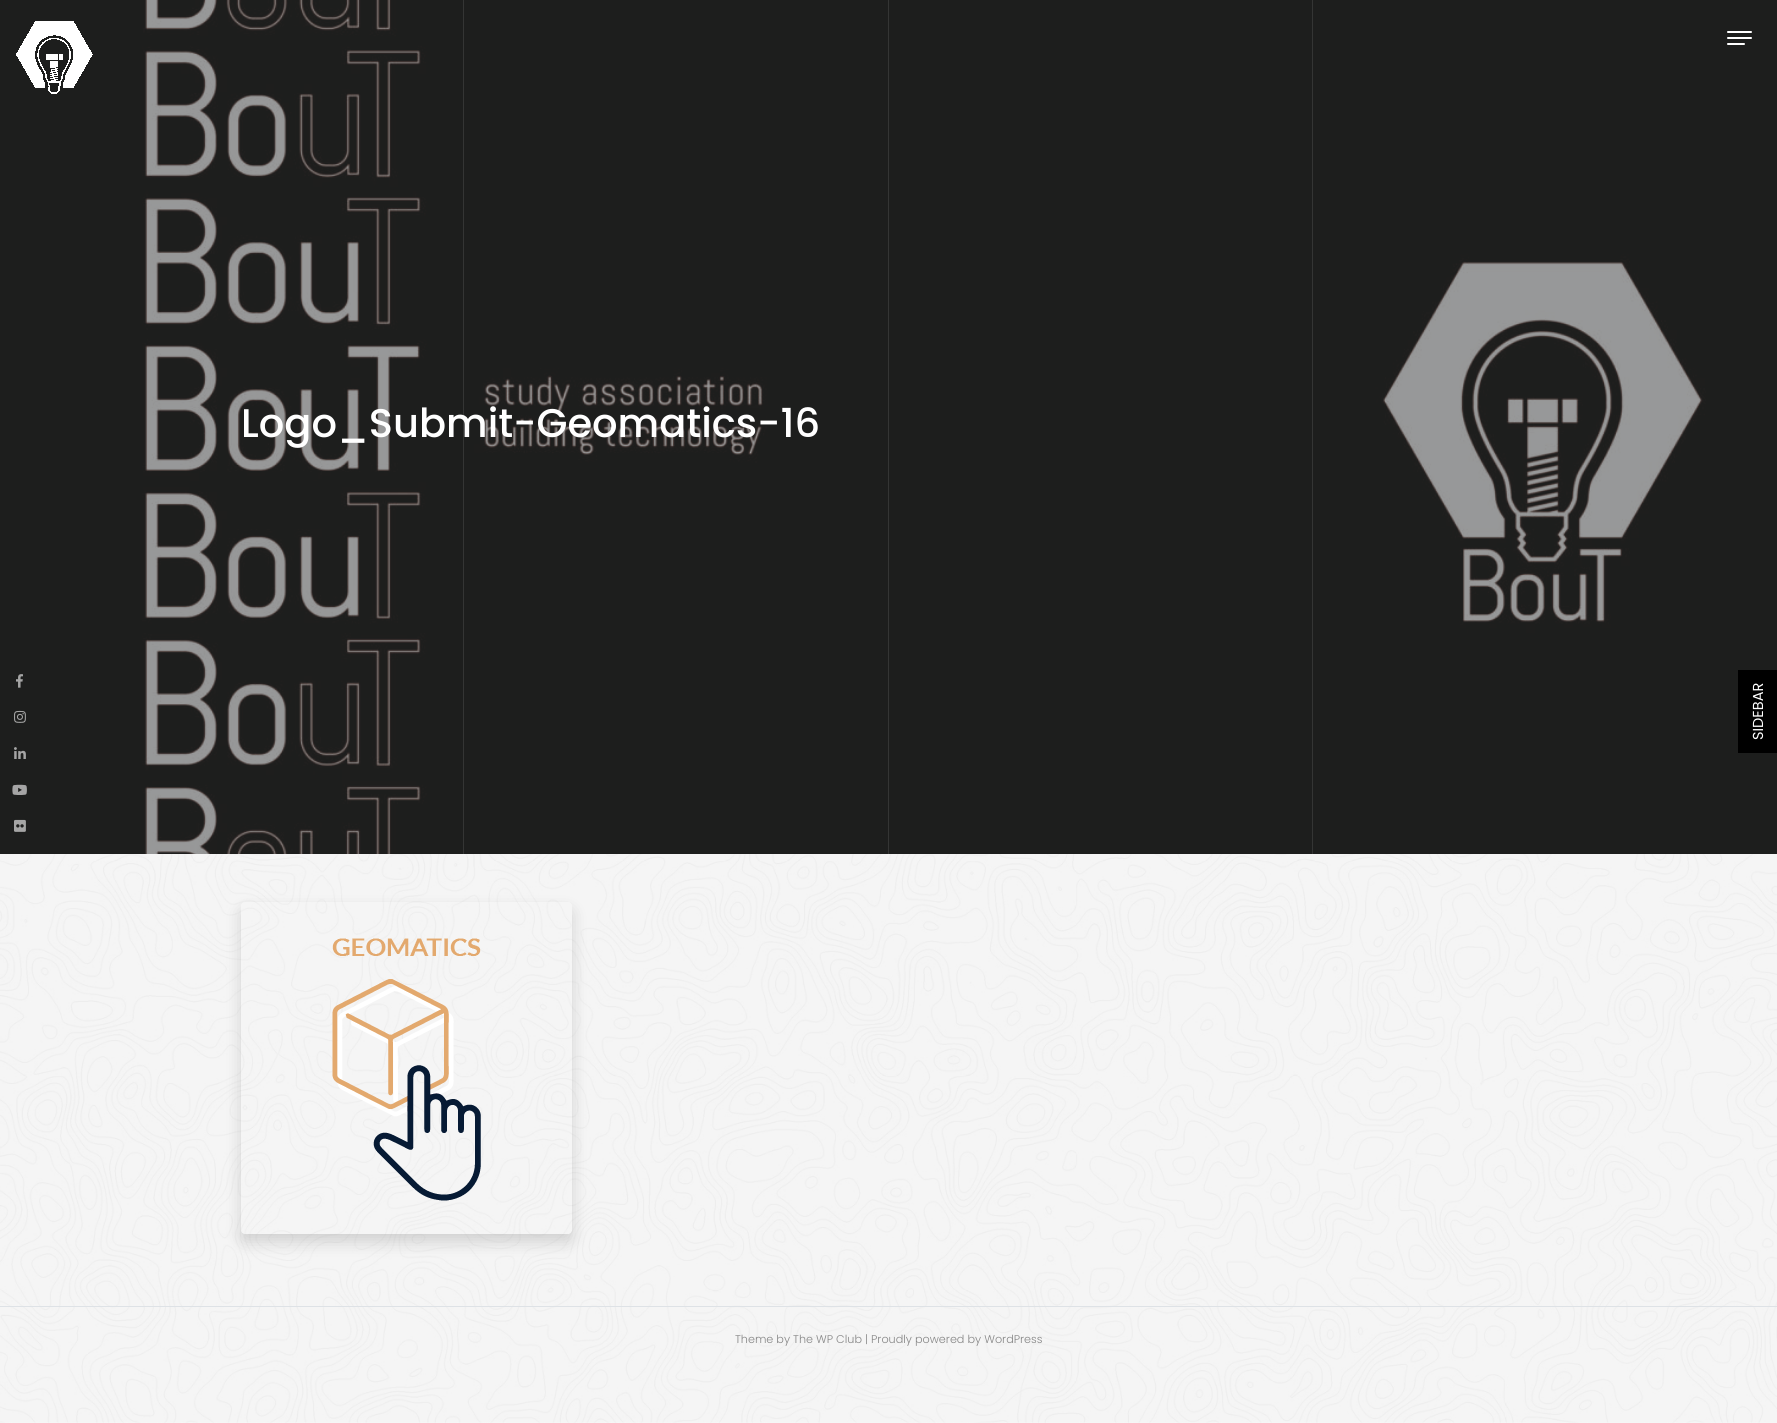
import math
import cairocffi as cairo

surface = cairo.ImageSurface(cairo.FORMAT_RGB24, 1777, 1423)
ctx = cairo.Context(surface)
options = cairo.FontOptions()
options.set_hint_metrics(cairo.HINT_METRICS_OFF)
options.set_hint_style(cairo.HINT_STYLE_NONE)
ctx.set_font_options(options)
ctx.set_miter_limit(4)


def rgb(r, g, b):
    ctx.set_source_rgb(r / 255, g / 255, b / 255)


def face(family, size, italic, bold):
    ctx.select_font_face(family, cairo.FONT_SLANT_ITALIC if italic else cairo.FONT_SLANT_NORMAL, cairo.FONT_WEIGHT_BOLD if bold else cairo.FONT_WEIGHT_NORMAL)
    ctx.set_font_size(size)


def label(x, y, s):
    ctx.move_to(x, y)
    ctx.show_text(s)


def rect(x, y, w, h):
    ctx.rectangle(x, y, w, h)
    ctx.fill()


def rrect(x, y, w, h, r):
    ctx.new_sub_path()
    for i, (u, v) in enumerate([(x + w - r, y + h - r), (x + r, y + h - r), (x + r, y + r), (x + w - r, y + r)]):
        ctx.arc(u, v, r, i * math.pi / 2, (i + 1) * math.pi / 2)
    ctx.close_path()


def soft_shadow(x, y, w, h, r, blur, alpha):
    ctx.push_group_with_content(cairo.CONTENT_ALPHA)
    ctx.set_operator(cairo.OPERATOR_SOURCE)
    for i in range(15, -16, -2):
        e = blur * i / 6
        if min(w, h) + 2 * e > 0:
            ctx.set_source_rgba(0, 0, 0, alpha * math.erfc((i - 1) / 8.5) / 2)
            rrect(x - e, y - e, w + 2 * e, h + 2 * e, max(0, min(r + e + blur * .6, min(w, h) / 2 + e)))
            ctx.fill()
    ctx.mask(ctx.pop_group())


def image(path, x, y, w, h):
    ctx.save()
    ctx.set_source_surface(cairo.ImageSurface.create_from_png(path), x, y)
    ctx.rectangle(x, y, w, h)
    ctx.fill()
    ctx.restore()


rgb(255, 255, 255)
ctx.paint()
image('image0.png', 0, 854, 1777, 569)
image('image2.png', 0, 0, 1777, 854)
image('image1.png', 16, 21, 77, 73)
rgb(255, 255, 255)
rrect(1727, 31, 25, 2, 1)
ctx.fill()
rrect(1727, 37, 25, 2, 1)
ctx.fill()
rrect(1727, 43, 18, 2, 1)
ctx.fill()
rgb(52, 53, 52)
rect(463, 0, 1, 854)
rect(888, 0, 1, 854)
rect(1312, 0, 1, 854)
face('Poppins Medium', 40, 0, 0)
rgb(255, 255, 255)
label(241, 437, 'Logo_Submit-Geomatics-16')
image('image3.png', 16, 674, 7, 14)
image('image4.png', 14, 710, 12, 13)
image('image5.png', 14, 747, 12, 12)
image('image6.png', 12, 784, 15, 11)
image('image7.png', 14, 819, 12, 13)
rgb(0, 0, 0)
rect(1738, 670, 39, 83)
face('Poppins', 14.5, 0, 0)
rgb(255, 255, 255)
ctx.save()
ctx.translate(1763, 740)
ctx.rotate(-90 * math.pi / 180)
label(0, 0, 'SIDEBAR')
ctx.restore()
ctx.save()
ctx.set_fill_rule(cairo.FILL_RULE_EVEN_ODD)
ctx.new_path()
ctx.move_to(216, 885)
ctx.line_to(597, 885)
ctx.line_to(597, 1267)
ctx.line_to(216, 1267)
ctx.close_path()
ctx.move_to(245, 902)
ctx.line_to(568, 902)
ctx.curve_to(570, 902, 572, 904, 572, 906)
ctx.line_to(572, 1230)
ctx.curve_to(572, 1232, 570, 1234, 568, 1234)
ctx.line_to(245, 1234)
ctx.curve_to(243, 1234, 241, 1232, 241, 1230)
ctx.line_to(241, 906)
ctx.curve_to(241, 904, 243, 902, 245, 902)
ctx.close_path()
ctx.clip()
rgb(0, 0, 0)
soft_shadow(241, 910, 331, 332, 4, 8, 0.15)
ctx.restore()
image('image8.png', 332, 938, 149, 263)
rgb(222, 226, 230)
rect(0, 1306, 1777, 1)
face('Poppins Light', 11.2, 0, 0)
rgb(133, 133, 133)
label(735, 1343, 'Theme by The WP Club | Proudly powered by WordPress')
surface.write_to_png('render.png')
